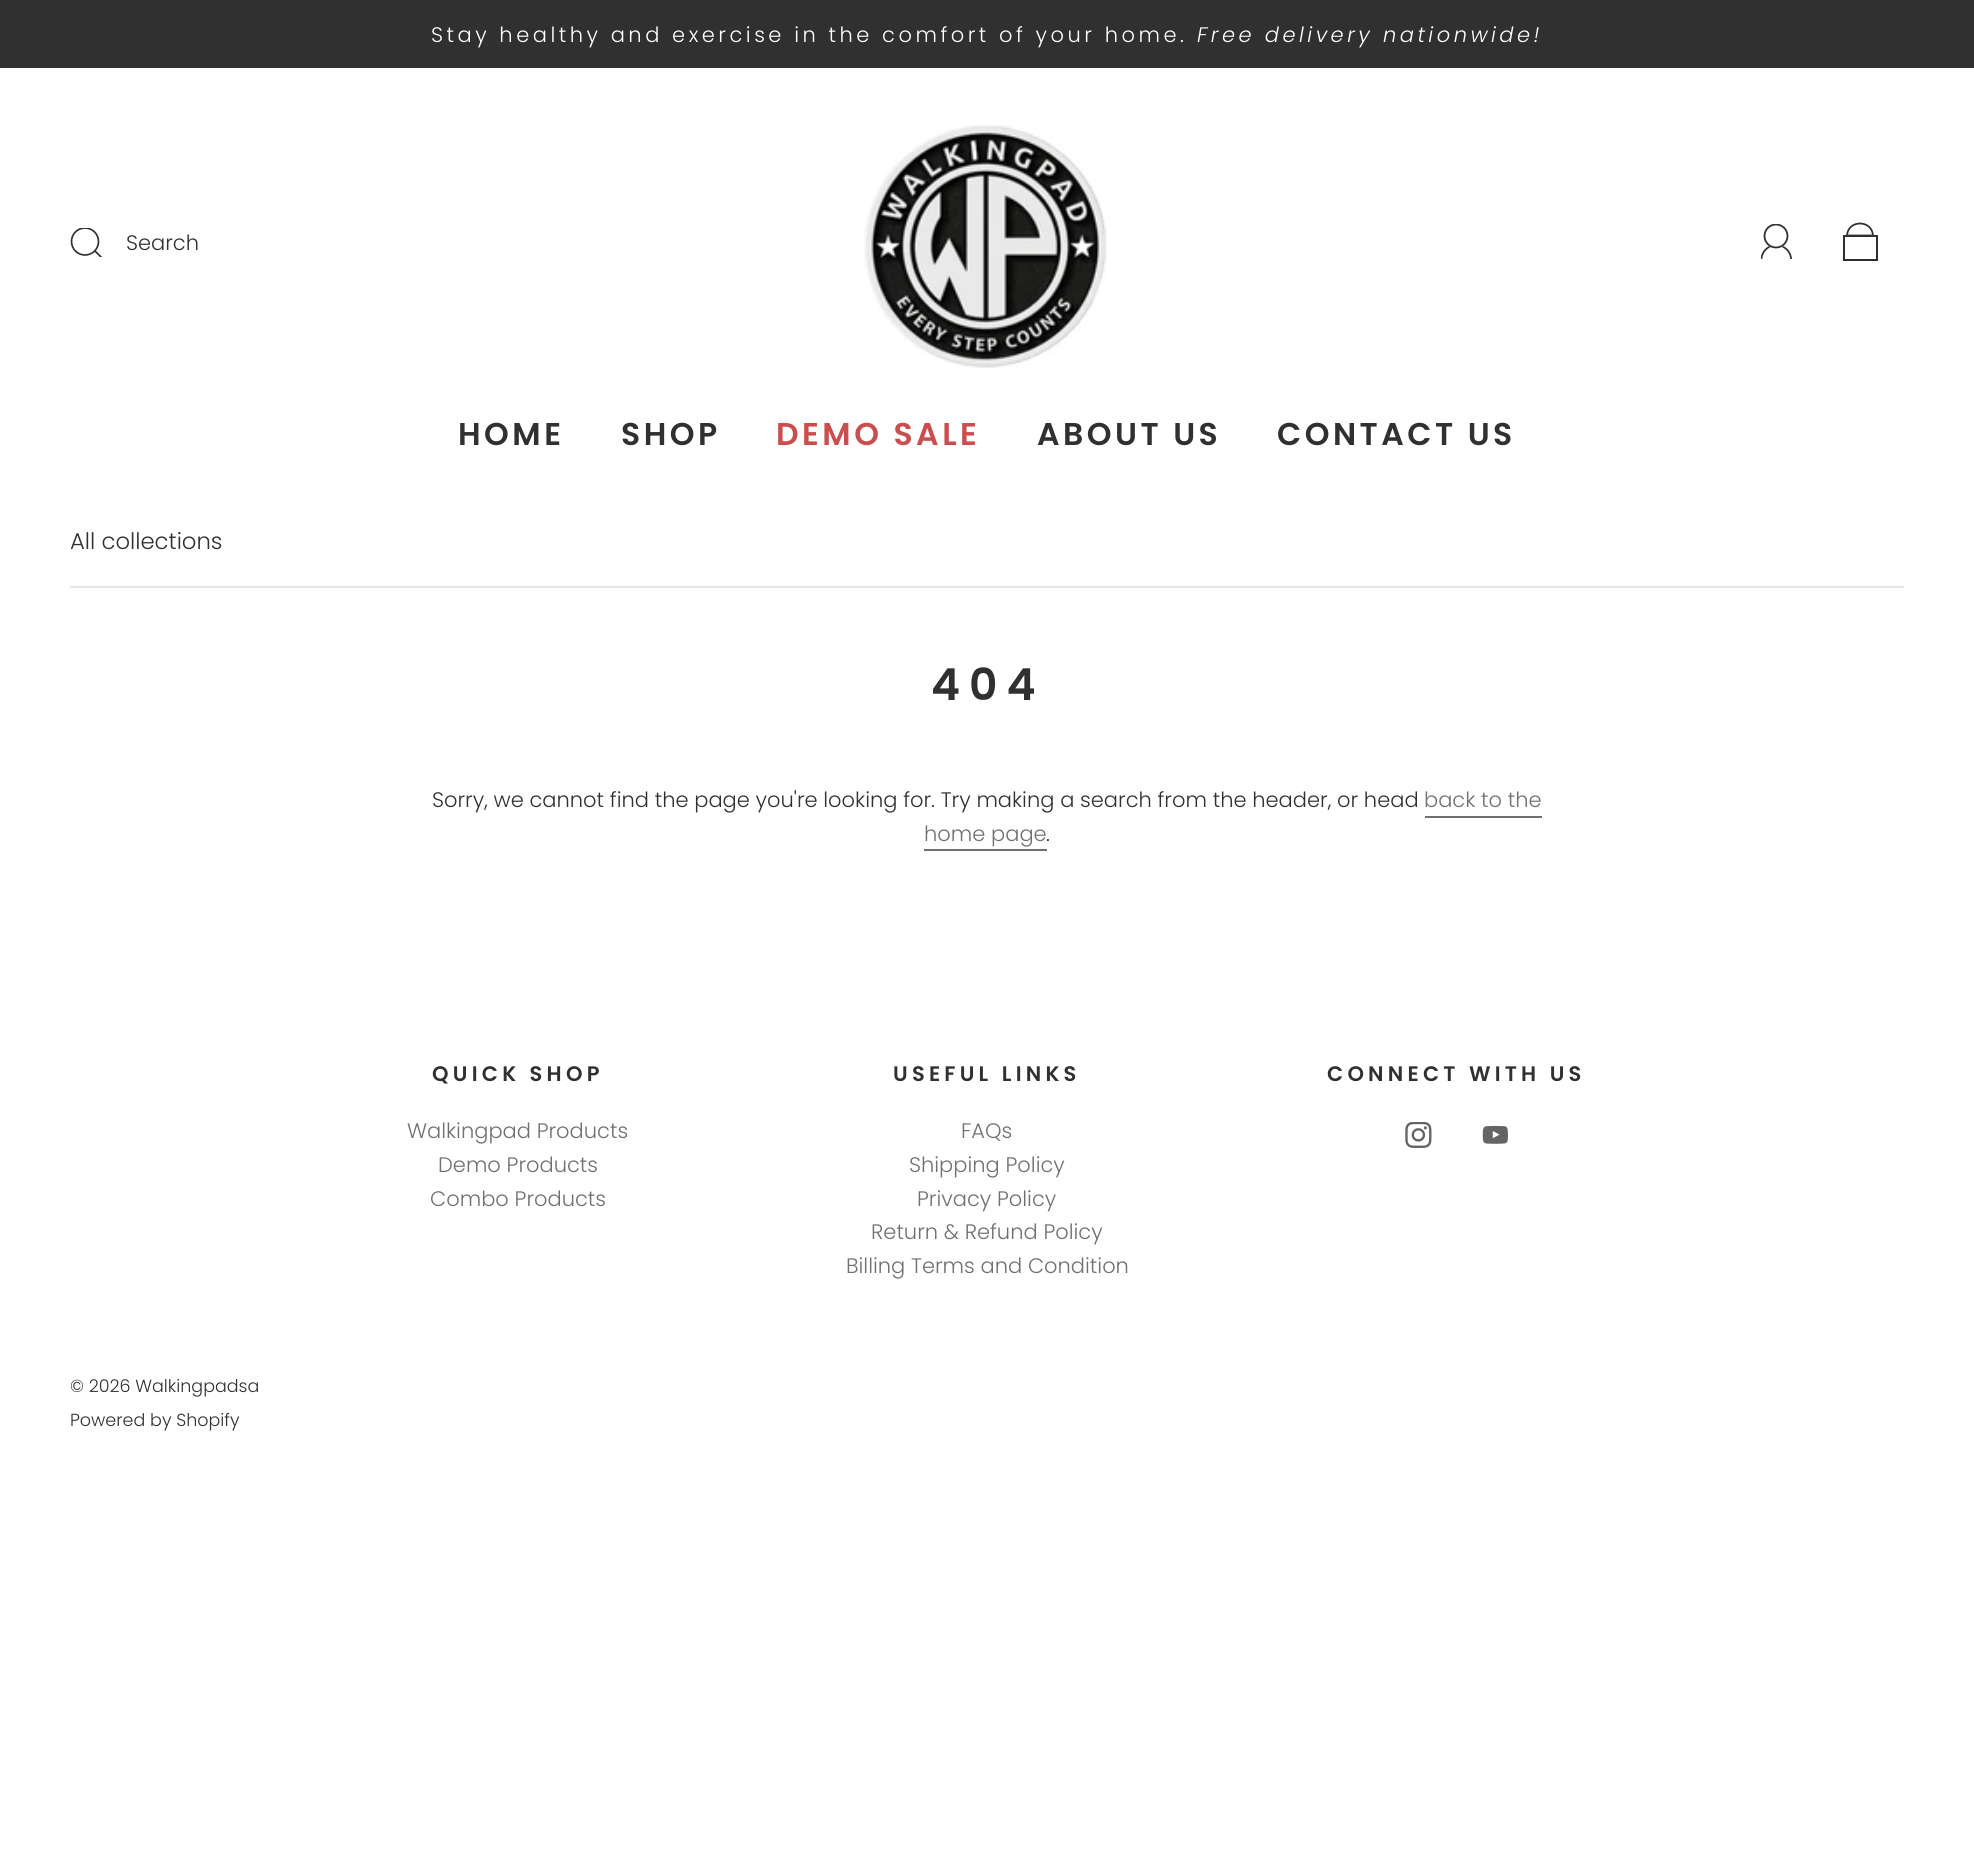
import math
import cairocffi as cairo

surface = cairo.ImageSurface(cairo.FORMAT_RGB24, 1974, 1853)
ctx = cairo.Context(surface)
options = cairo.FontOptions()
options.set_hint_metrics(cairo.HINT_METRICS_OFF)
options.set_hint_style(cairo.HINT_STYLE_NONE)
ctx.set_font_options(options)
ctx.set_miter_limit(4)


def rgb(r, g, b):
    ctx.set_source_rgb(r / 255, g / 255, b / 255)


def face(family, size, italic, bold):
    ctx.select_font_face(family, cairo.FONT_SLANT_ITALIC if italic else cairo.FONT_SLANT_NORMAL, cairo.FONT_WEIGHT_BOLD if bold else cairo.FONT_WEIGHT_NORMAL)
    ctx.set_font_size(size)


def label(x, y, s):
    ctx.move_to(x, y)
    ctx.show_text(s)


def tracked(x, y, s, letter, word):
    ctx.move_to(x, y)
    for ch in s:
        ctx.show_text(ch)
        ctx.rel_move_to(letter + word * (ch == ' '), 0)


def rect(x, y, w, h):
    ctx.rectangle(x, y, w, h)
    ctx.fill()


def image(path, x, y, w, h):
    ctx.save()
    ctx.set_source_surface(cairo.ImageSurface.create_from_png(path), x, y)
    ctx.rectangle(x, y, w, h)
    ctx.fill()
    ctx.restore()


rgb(255, 255, 255)
ctx.paint()
rgb(48, 48, 48)
rect(0, 0, 1974, 68)
face('Poppins Light', 21, 0, 0)
rgb(255, 255, 255)
tracked(431, 42, 'Stay healthy and exercise in the comfort of your home.', 3.5, 0)
face('Poppins Light', 21, 1, 0)
tracked(1197, 42, 'Free delivery nationwide!', 3.5, 0)
ctx.save()
ctx.rectangle(70, 228, 32, 29)
ctx.clip()
ctx.arc(85, 241.5, 13.5, 0, 2 * math.pi)
rgb(48, 48, 48)
ctx.set_line_width(1.7)
ctx.stroke()
ctx.new_path()
ctx.move_to(94.5, 250.5)
ctx.line_to(104, 260)
ctx.stroke()
ctx.restore()
face('Poppins Light', 21, 0, 0)
rgb(48, 48, 48)
label(126, 250, 'Search')
image('image0.png', 864, 125, 243, 244)
image('image1.png', 1761, 224, 31, 35)
ctx.new_path()
ctx.move_to(1847, 235.5)
ctx.curve_to(1848, 219.5, 1872, 219.5, 1873, 235.5)
ctx.close_path()
ctx.set_line_width(1.8)
ctx.stroke()
ctx.rectangle(1844, 236, 33, 24)
ctx.set_line_width(2)
ctx.stroke()
face('Poppins SemiBold', 31.5, 0, 0)
tracked(458, 445, 'HOME', 3.5, 0)
tracked(621, 445, 'SHOP', 3.5, 0)
rgb(203, 77, 77)
tracked(776, 445, 'DEMO SALE', 3.5, 0)
rgb(48, 48, 48)
tracked(1037, 445, 'ABOUT US', 3.5, 0)
tracked(1277, 445, 'CONTACT US', 3.5, 0)
rgb(230, 230, 230)
rect(70, 586, 1834, 2)
face('Poppins Light', 22.75, 0, 0)
rgb(48, 48, 48)
label(70, 549, 'All collections')
face('Poppins SemiBold', 44, 0, 0)
tracked(931, 700, '404', 9, 0)
face('Poppins Light', 21, 0, 0)
label(432, 807, 'Sorry, we cannot find the page you\'re looking for. Try making a search from the header, or head')
rgb(112, 112, 112)
label(1424, 807, 'back to the')
rect(1425, 816, 117, 2)
label(924, 841, 'home page')
rect(924, 849, 123, 2)
rgb(48, 48, 48)
label(1046, 841, '.')
face('Poppins SemiBold', 21, 0, 0)
tracked(432, 1081, 'QUICK SHOP', 4.25, 0)
face('Poppins Light', 21, 0, 0)
rgb(112, 112, 112)
label(407, 1138, 'Walkingpad Products')
label(438, 1172, 'Demo Products')
label(430, 1206, 'Combo Products')
face('Poppins SemiBold', 21, 0, 0)
rgb(48, 48, 48)
tracked(893, 1081, 'USEFUL LINKS', 4.25, 0)
face('Poppins Light', 21, 0, 0)
rgb(112, 112, 112)
label(961, 1138, 'FAQs')
label(909, 1172, 'Shipping Policy')
label(917, 1206, 'Privacy Policy')
label(871, 1239, 'Return & Refund Policy')
label(846, 1273, 'Billing Terms and Condition')
face('Poppins SemiBold', 21, 0, 0)
rgb(48, 48, 48)
tracked(1327, 1081, 'CONNECT WITH US', 4.25, 0)
image('image2.png', 1405, 1122, 27, 26)
image('image3.png', 1482, 1125, 26, 19)
face('Poppins Light', 17.5, 0, 0)
label(70, 1392, '© 2026 Walkingpadsa')
label(70, 1426, 'Powered by Shopify')
surface.write_to_png('render.png')
